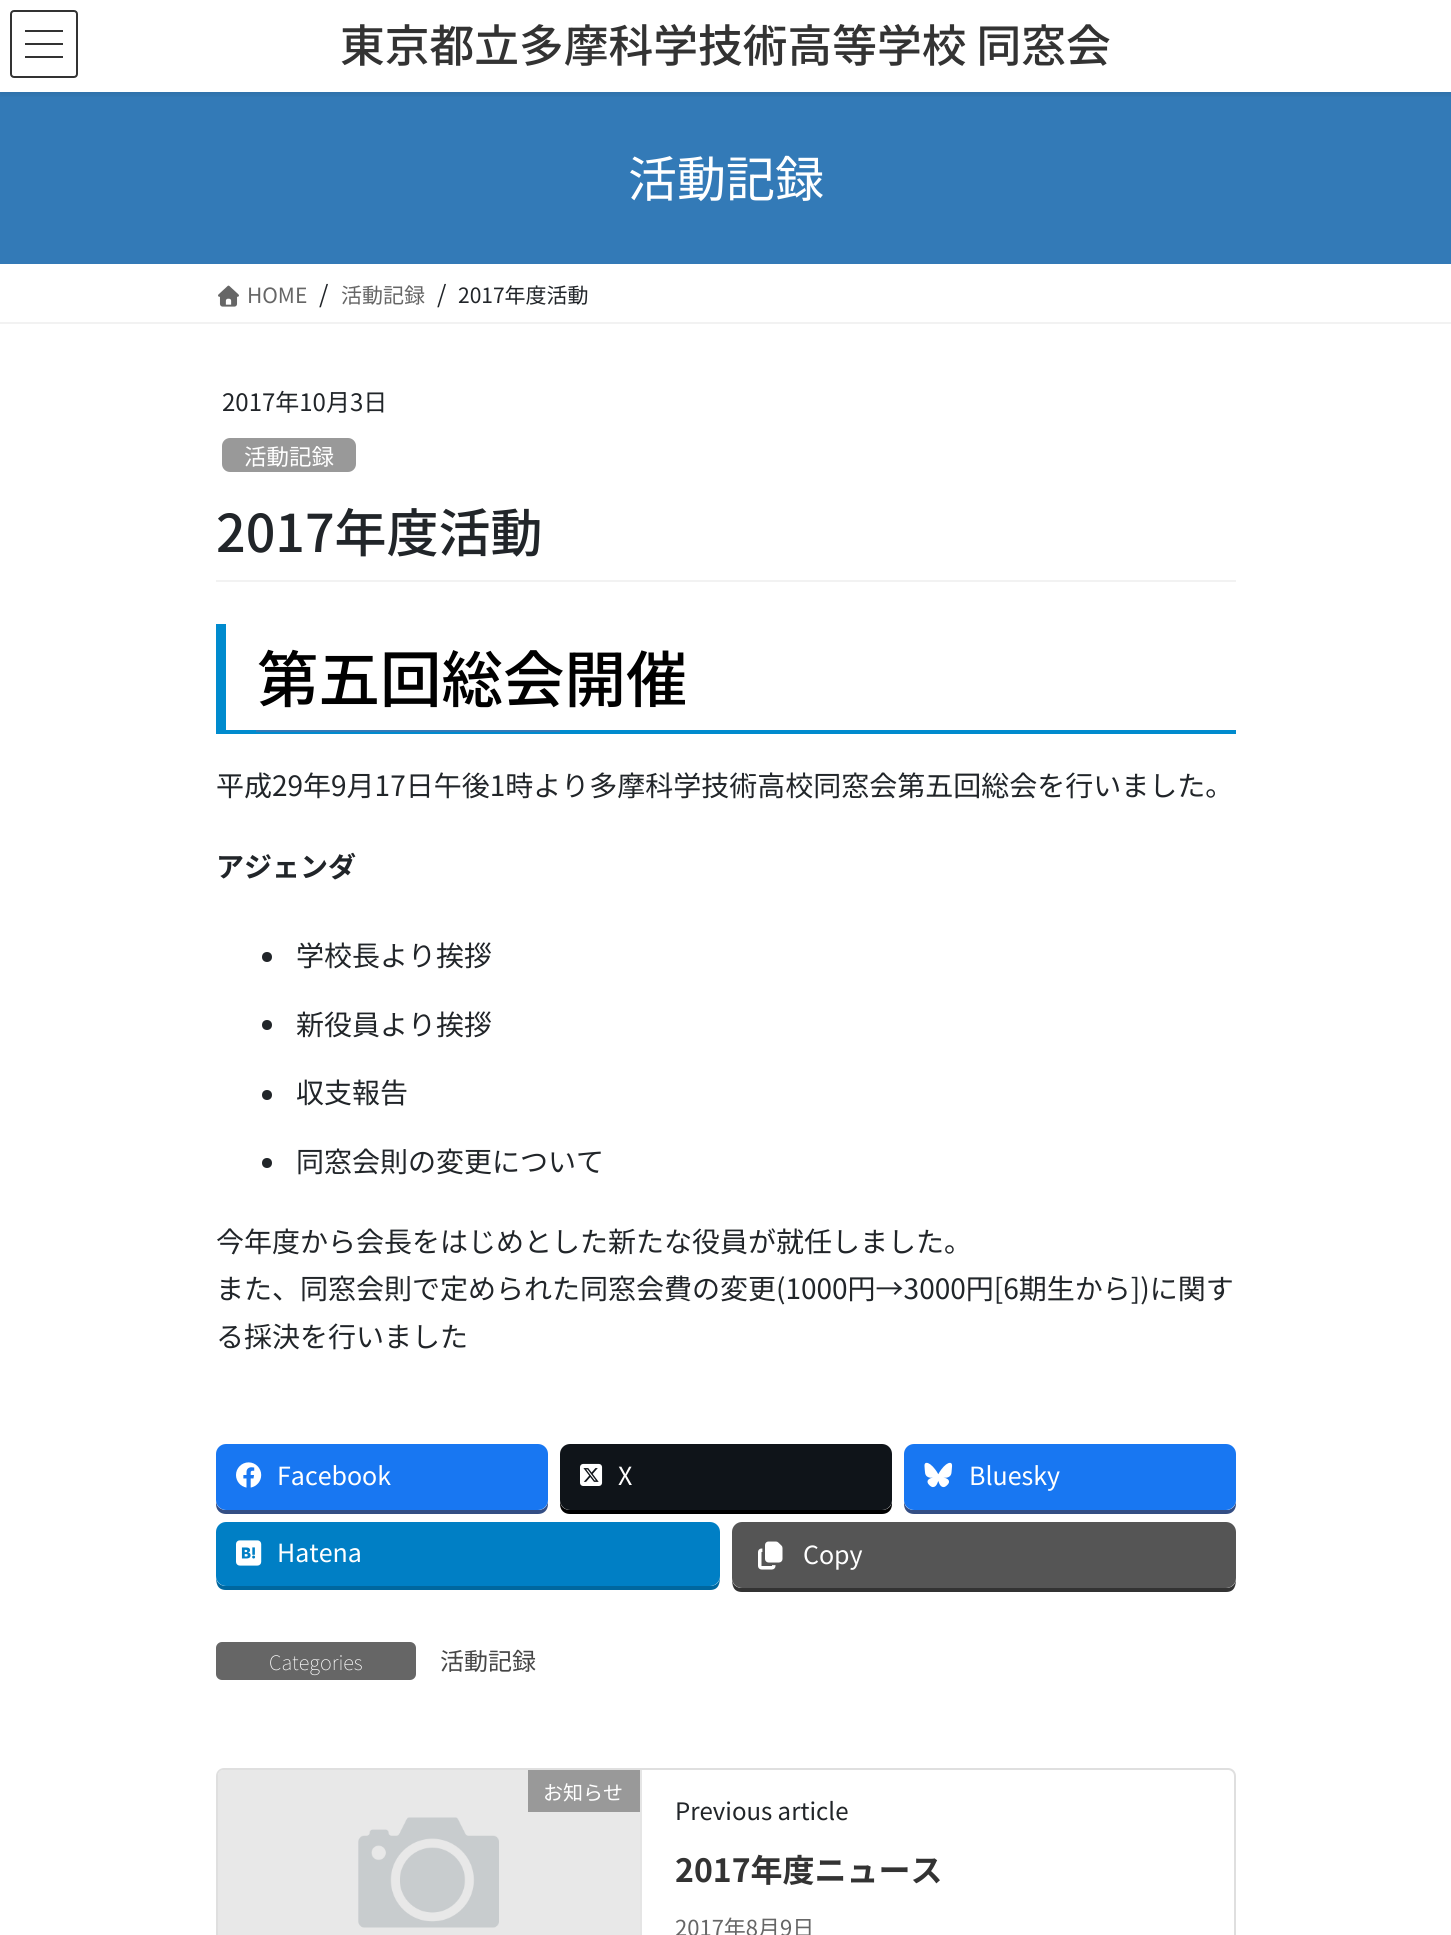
import math
import cairocffi as cairo

surface = cairo.ImageSurface(cairo.FORMAT_RGB24, 1451, 1935)
ctx = cairo.Context(surface)
options = cairo.FontOptions()
options.set_hint_metrics(cairo.HINT_METRICS_OFF)
options.set_hint_style(cairo.HINT_STYLE_NONE)
ctx.set_font_options(options)
ctx.set_miter_limit(4)


def rgb(r, g, b):
    ctx.set_source_rgb(r / 255, g / 255, b / 255)


def face(family, size, italic, bold):
    ctx.select_font_face(family, cairo.FONT_SLANT_ITALIC if italic else cairo.FONT_SLANT_NORMAL, cairo.FONT_WEIGHT_BOLD if bold else cairo.FONT_WEIGHT_NORMAL)
    ctx.set_font_size(size)


def label(x, y, s):
    ctx.move_to(x, y)
    ctx.show_text(s)


def rect(x, y, w, h):
    ctx.rectangle(x, y, w, h)
    ctx.fill()


def rrect(x, y, w, h, r):
    ctx.new_sub_path()
    for i, (u, v) in enumerate([(x + w - r, y + h - r), (x + r, y + h - r), (x + r, y + r), (x + w - r, y + r)]):
        ctx.arc(u, v, r, i * math.pi / 2, (i + 1) * math.pi / 2)
    ctx.close_path()


def soft_shadow(x, y, w, h, r, blur, alpha):
    ctx.push_group_with_content(cairo.CONTENT_ALPHA)
    ctx.set_operator(cairo.OPERATOR_SOURCE)
    for i in range(15, -16, -2):
        e = blur * i / 6
        if min(w, h) + 2 * e > 0:
            ctx.set_source_rgba(0, 0, 0, alpha * math.erfc((i - 1) / 8.5) / 2)
            rrect(x - e, y - e, w + 2 * e, h + 2 * e, max(0, min(r + e + blur * .6, min(w, h) / 2 + e)))
            ctx.fill()
    ctx.mask(ctx.pop_group())


def image(path, x, y, w, h):
    ctx.save()
    ctx.set_source_surface(cairo.ImageSurface.create_from_png(path), x, y)
    ctx.rectangle(x, y, w, h)
    ctx.fill()
    ctx.restore()


rgb(255, 255, 255)
ctx.paint()
rgb(51, 122, 183)
rect(0, 92, 1451, 172)
ctx.save()
ctx.rectangle(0, 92, 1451, 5)
ctx.clip()
rgb(0, 0, 0)
soft_shadow(0, 2, 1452, 92, 0, 3, 0.1)
ctx.restore()
rgb(51, 51, 51)
rect(25, 30, 38, 2)
rect(25, 43, 38, 2)
rect(25, 56, 38, 2)
rrect(11, 11, 66, 66, 3)
ctx.stroke()
face('Noto Sans JP Medium', 44.75, 0, 0)
label(340, 62, '東京都立多摩科学技術高等学校 同窓会')
face('Noto Sans JP', 49, 0, 0)
rgb(255, 255, 255)
label(628, 197, '活動記録')
rgb(242, 242, 242)
rect(0, 322, 1451, 2)
image('image0.png', 218, 285, 21, 22)
face('Noto Sans JP', 21, 0, 0)
rgb(102, 102, 102)
label(247, 303, 'HOME')
face('Noto Sans JP', 24, 0, 0)
rgb(33, 37, 41)
label(319, 303, '/')
face('Noto Sans JP', 21, 0, 0)
rgb(102, 102, 102)
label(341, 303, '活動記録')
face('Noto Sans JP', 24, 0, 0)
rgb(33, 37, 41)
label(437, 303, '/')
face('Noto Sans JP', 21, 0, 0)
label(458, 303, '2017年度活動')
rgb(242, 242, 242)
rect(216, 580, 1020, 2)
face('Noto Sans JP', 24, 0, 0)
rgb(33, 37, 41)
label(222, 411, '2017年10月3日')
rgb(153, 153, 153)
rrect(222, 438, 134, 34, 8)
ctx.fill()
face('Noto Sans JP', 22.5, 0, 0)
rgb(255, 255, 255)
label(244, 465, '活動記録')
face('Noto Sans JP Medium', 52, 0, 0)
rgb(33, 37, 41)
label(216, 552, '2017年度活動')
rgb(0, 139, 206)
rect(226, 730, 1010, 4)
rect(216, 624, 10, 110)
face('Noto Sans JP Medium', 61.5, 0, 0)
rgb(0, 0, 0)
label(257, 702, '第五回総会開催')
rgb(51, 122, 183)
rect(256, 730, 304, 2)
face('Noto Sans JP', 28, 0, 0)
rgb(33, 37, 41)
label(216, 796, '平成29年9月17日午後1時より多摩科学技術高校同窓会第五回総会を行いました。')
face('Noto Sans JP', 28, 0, 1)
label(216, 877, 'アジェンダ')
ctx.new_path()
ctx.arc(267, 957, 5, 0, 2 * math.pi)
ctx.fill()
face('Noto Sans JP', 28, 0, 0)
label(296, 966, '学校長より挨拶')
ctx.new_path()
ctx.arc(267, 1025, 5, 0, 2 * math.pi)
ctx.fill()
label(296, 1035, '新役員より挨拶')
ctx.new_path()
ctx.arc(267, 1095, 5, 0, 2 * math.pi)
ctx.fill()
label(296, 1103, '収支報告')
ctx.new_path()
ctx.arc(267, 1163, 5, 0, 2 * math.pi)
ctx.fill()
label(296, 1172, '同窓会則の変更について')
label(216, 1252, '今年度から会長をはじめとした新たな役員が就任しました。')
label(216, 1299, 'また、同窓会則で定められた同窓会費の変更(1000円→3000円[6期生から])に関す')
label(216, 1347, 'る採決を行いました')
rgb(52, 78, 132)
ctx.new_path()
ctx.move_to(216, 1500)
ctx.line_to(216, 1504)
ctx.curve_to(216, 1510, 220, 1514, 226, 1514)
ctx.line_to(538, 1514)
ctx.curve_to(544, 1514, 548, 1510, 548, 1504)
ctx.line_to(548, 1500)
ctx.curve_to(548, 1506, 544, 1510, 538, 1510)
ctx.line_to(226, 1510)
ctx.curve_to(220, 1510, 216, 1506, 216, 1500)
ctx.close_path()
ctx.fill()
rgb(24, 119, 242)
rrect(216, 1444, 332, 66, 10)
ctx.fill()
image('image1.png', 236, 1462, 26, 26)
face('Noto Sans JP', 25, 0, 0)
rgb(255, 255, 255)
label(277, 1485, 'Facebook')
rgb(0, 0, 0)
ctx.new_path()
ctx.move_to(560, 1500)
ctx.line_to(560, 1504)
ctx.curve_to(560, 1510, 564, 1514, 570, 1514)
ctx.line_to(882, 1514)
ctx.curve_to(888, 1514, 892, 1510, 892, 1504)
ctx.line_to(892, 1500)
ctx.curve_to(892, 1506, 888, 1510, 882, 1510)
ctx.line_to(570, 1510)
ctx.curve_to(564, 1510, 560, 1506, 560, 1500)
ctx.close_path()
ctx.fill()
rgb(15, 20, 25)
rrect(560, 1444, 332, 66, 10)
ctx.fill()
image('image2.png', 580, 1463, 23, 23)
rgb(255, 255, 255)
label(618, 1485, 'X')
rgb(52, 78, 132)
ctx.new_path()
ctx.move_to(904, 1500)
ctx.line_to(904, 1504)
ctx.curve_to(904, 1510, 908, 1514, 914, 1514)
ctx.line_to(1226, 1514)
ctx.curve_to(1232, 1514, 1236, 1510, 1236, 1504)
ctx.line_to(1236, 1500)
ctx.curve_to(1236, 1506, 1232, 1510, 1226, 1510)
ctx.line_to(914, 1510)
ctx.curve_to(908, 1510, 904, 1506, 904, 1500)
ctx.close_path()
ctx.fill()
rgb(24, 119, 242)
rrect(904, 1444, 332, 66, 10)
ctx.fill()
image('image3.png', 924, 1462, 29, 26)
rgb(255, 255, 255)
label(969, 1485, 'Bluesky')
rgb(0, 103, 159)
ctx.new_path()
ctx.move_to(216, 1576)
ctx.curve_to(216, 1583, 217, 1590, 226, 1590)
ctx.line_to(710, 1590)
ctx.curve_to(719, 1590, 720, 1583, 720, 1576)
ctx.curve_to(720, 1582, 716, 1586, 710, 1586)
ctx.line_to(226, 1586)
ctx.curve_to(220, 1586, 216, 1582, 216, 1576)
ctx.close_path()
ctx.fill()
rgb(0, 127, 197)
rrect(216, 1522, 504, 64, 10)
ctx.fill()
image('image4.png', 236, 1540, 26, 26)
rgb(255, 255, 255)
label(277, 1562, 'Hatena')
rgb(51, 51, 51)
ctx.new_path()
ctx.move_to(732, 1578)
ctx.curve_to(732, 1585, 733, 1592, 742, 1592)
ctx.line_to(1226, 1592)
ctx.curve_to(1235, 1592, 1236, 1585, 1236, 1578)
ctx.curve_to(1236, 1584, 1232, 1588, 1226, 1588)
ctx.line_to(742, 1588)
ctx.curve_to(736, 1588, 732, 1584, 732, 1578)
ctx.close_path()
ctx.fill()
rgb(85, 85, 85)
rrect(732, 1522, 504, 66, 10)
ctx.fill()
image('image5.png', 758, 1541, 25, 29)
rgb(255, 255, 255)
label(803, 1564, 'Copy')
rgb(102, 102, 102)
rrect(216, 1642, 200, 38, 6)
ctx.fill()
face('Noto Sans JP Thin', 20, 0, 0)
rgb(255, 255, 255)
label(269, 1670, 'Categories')
face('Noto Sans JP', 24, 0, 0)
rgb(70, 70, 70)
label(440, 1670, '活動記録')
rrect(217, 1769, 1018, 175, 7)
rgb(223, 223, 223)
ctx.stroke()
image('image6.png', 218, 1770, 422, 165)
rgb(229, 229, 229)
rect(640, 1770, 2, 165)
rgb(153, 153, 153)
rect(528, 1770, 112, 42)
face('Noto Sans JP', 20, 0, 0)
rgb(255, 255, 255)
label(543, 1800, 'お知らせ')
face('Noto Sans JP', 24, 0, 0)
rgb(33, 37, 41)
label(675, 1820, 'Previous article')
face('Noto Sans JP', 32, 0, 1)
rgb(51, 51, 51)
label(675, 1882, '2017年度ニュース')
face('Noto Sans JP', 22, 0, 0)
rgb(102, 102, 102)
label(675, 1936, '2017年8月9日')
surface.write_to_png('render.png')
